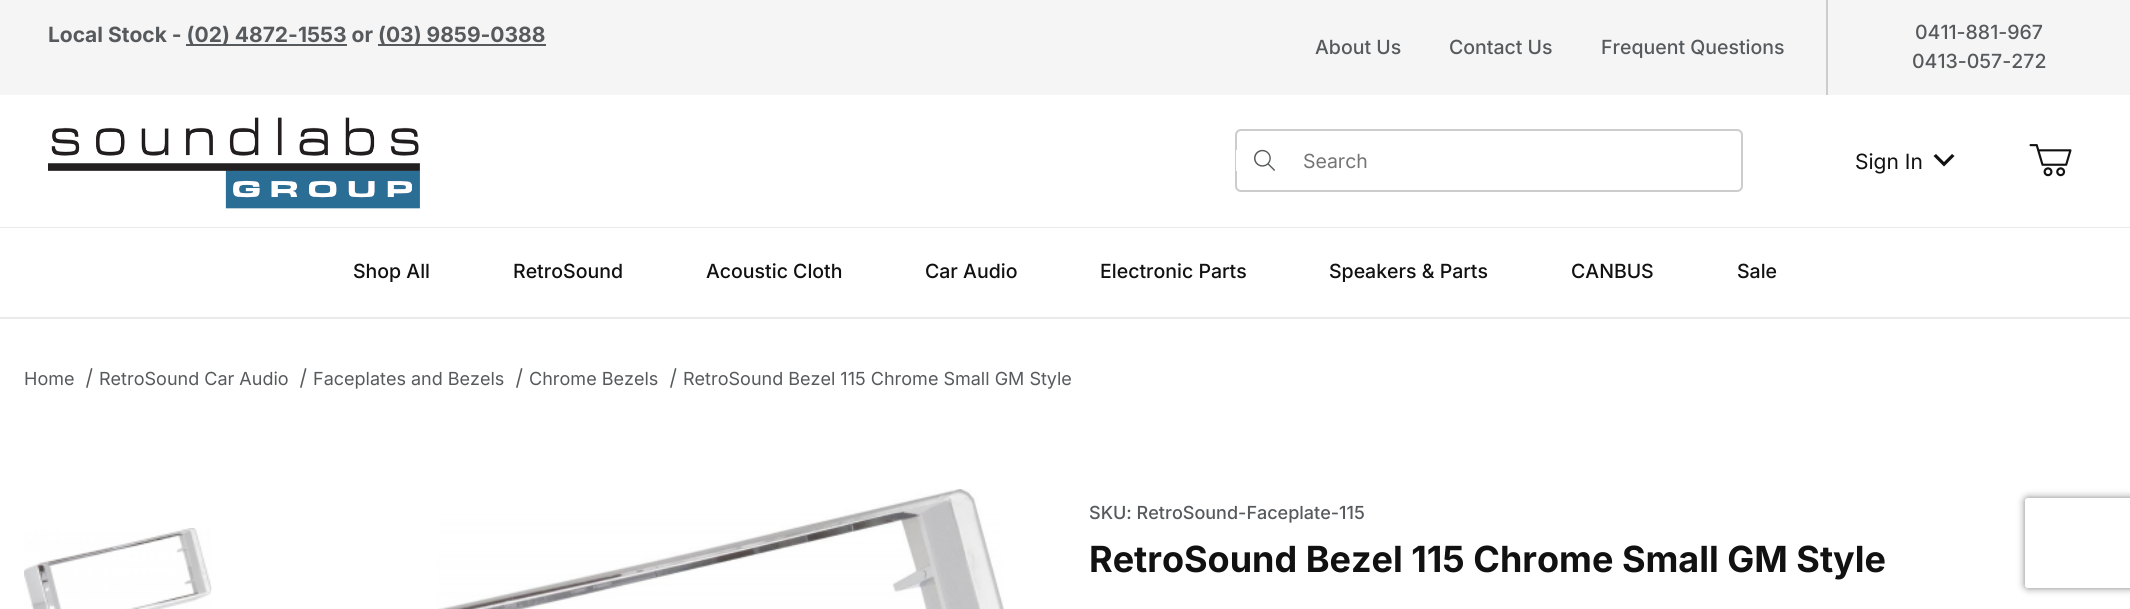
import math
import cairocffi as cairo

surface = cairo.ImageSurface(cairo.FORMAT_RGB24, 2130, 609)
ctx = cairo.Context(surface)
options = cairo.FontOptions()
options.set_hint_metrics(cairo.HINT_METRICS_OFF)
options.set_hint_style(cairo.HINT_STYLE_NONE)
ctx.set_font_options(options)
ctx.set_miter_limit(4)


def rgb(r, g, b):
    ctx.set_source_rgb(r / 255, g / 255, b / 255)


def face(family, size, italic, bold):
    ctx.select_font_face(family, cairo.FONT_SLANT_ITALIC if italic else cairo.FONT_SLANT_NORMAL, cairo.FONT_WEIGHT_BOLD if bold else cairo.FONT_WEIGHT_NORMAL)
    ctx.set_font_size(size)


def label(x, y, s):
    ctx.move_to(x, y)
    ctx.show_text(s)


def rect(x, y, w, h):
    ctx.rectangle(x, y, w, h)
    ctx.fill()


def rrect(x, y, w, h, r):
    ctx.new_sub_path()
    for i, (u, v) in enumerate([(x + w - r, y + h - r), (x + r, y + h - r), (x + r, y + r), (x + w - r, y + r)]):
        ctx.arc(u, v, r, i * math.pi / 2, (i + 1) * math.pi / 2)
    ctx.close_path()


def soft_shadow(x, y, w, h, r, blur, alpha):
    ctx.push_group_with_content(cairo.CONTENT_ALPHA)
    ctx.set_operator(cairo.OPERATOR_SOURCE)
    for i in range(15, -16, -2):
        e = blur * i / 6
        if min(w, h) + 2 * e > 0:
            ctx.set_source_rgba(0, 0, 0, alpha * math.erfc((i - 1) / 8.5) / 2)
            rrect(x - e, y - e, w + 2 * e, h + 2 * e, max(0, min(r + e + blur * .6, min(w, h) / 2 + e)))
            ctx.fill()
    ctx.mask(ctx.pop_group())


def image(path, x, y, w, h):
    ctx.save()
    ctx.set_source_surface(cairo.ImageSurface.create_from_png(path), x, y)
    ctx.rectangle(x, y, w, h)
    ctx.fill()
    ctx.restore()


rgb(255, 255, 255)
ctx.paint()
rgb(234, 234, 234)
rect(0, 227, 2130, 1)
rgb(245, 245, 245)
rect(0, 0, 2130, 95)
face('Inter', 21, 0, 1)
rgb(87, 90, 93)
label(48, 42, 'Local Stock - (02) 4872-1553 or (03) 9859-0388')
rect(186, 44, 161, 2)
rect(378, 44, 168, 2)
face('Inter Medium', 19.5, 0, 0)
label(1315, 54, 'About Us')
label(1449, 54, 'Contact Us')
label(1601, 54, 'Frequent Questions')
rgb(204, 204, 204)
rect(1826, 0, 2, 95)
rgb(87, 90, 93)
label(1915, 39, '0411-881-967')
label(1912, 68, '0413-057-272')
image('image0.png', 48, 117, 372, 92)
rrect(1236, 130, 506, 61, 5)
rgb(204, 204, 204)
ctx.stroke()
rgb(255, 255, 255)
rect(1236, 150, 1, 21)
image('image1.png', 1254, 149, 21, 22)
face('Inter', 19.5, 0, 0)
rgb(117, 117, 117)
label(1303, 168, 'Search')
face('Inter', 21, 0, 0)
rgb(17, 17, 17)
label(1855, 169, 'Sign In')
ctx.new_path()
ctx.move_to(1936, 154)
ctx.line_to(1933.5, 156)
ctx.line_to(1944, 166.5)
ctx.line_to(1954.5, 156)
ctx.line_to(1952, 154)
ctx.line_to(1944, 162)
ctx.close_path()
ctx.fill()
image('image2.png', 2029, 144, 43, 33)
rgb(234, 234, 234)
rect(0, 317, 2130, 2)
face('Inter Medium', 19.5, 0, 0)
rgb(17, 17, 17)
label(353, 278, 'Shop All')
label(513, 278, 'RetroSound')
label(706, 278, 'Acoustic Cloth')
label(925, 278, 'Car Audio')
label(1100, 278, 'Electronic Parts')
label(1329, 278, 'Speakers & Parts')
label(1571, 278, 'CANBUS')
label(1737, 278, 'Sale')
face('Inter', 18, 0, 0)
rgb(87, 90, 93)
label(24, 385, 'Home')
ctx.new_path()
ctx.move_to(91, 368)
ctx.line_to(92.5, 368.5)
ctx.line_to(87.5, 388)
ctx.line_to(86, 387.5)
ctx.close_path()
ctx.fill()
label(99, 385, 'RetroSound Car Audio')
ctx.new_path()
ctx.move_to(305, 368)
ctx.line_to(306.5, 368.5)
ctx.line_to(301.5, 388)
ctx.line_to(300, 387.5)
ctx.close_path()
ctx.fill()
label(313, 385, 'Faceplates and Bezels')
ctx.new_path()
ctx.move_to(521, 368)
ctx.line_to(522.5, 368.5)
ctx.line_to(517.5, 388)
ctx.line_to(516, 387.5)
ctx.close_path()
ctx.fill()
label(529, 385, 'Chrome Bezels')
ctx.new_path()
ctx.move_to(675, 368)
ctx.line_to(676.5, 368.5)
ctx.line_to(671.5, 388)
ctx.line_to(670, 387.5)
ctx.close_path()
ctx.fill()
label(683, 385, 'RetroSound Bezel 115 Chrome Small GM Style')
image('image3.png', 24, 528, 188, 81)
image('image4.png', 437, 489, 567, 120)
face('Inter Medium', 18, 0, 0)
label(1089, 519, 'SKU: RetroSound-Faceplate-115')
face('Inter', 36, 0, 1)
rgb(17, 17, 17)
label(1089, 572, 'RetroSound Bezel 115 Chrome Small GM Style')
ctx.save()
ctx.set_fill_rule(cairo.FILL_RULE_EVEN_ODD)
ctx.new_path()
ctx.move_to(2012, 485)
ctx.line_to(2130, 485)
ctx.line_to(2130, 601)
ctx.line_to(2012, 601)
ctx.close_path()
ctx.move_to(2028, 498)
ctx.line_to(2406, 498)
ctx.curve_to(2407.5, 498, 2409, 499.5, 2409, 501)
ctx.line_to(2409, 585)
ctx.curve_to(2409, 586.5, 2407.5, 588, 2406, 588)
ctx.line_to(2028, 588)
ctx.curve_to(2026.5, 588, 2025, 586.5, 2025, 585)
ctx.line_to(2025, 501)
ctx.curve_to(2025, 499.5, 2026.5, 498, 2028, 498)
ctx.close_path()
ctx.clip()
rgb(128, 128, 128)
soft_shadow(2025, 498, 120, 90, 3, 4, 1)
ctx.restore()
surface.write_to_png('render.png')
